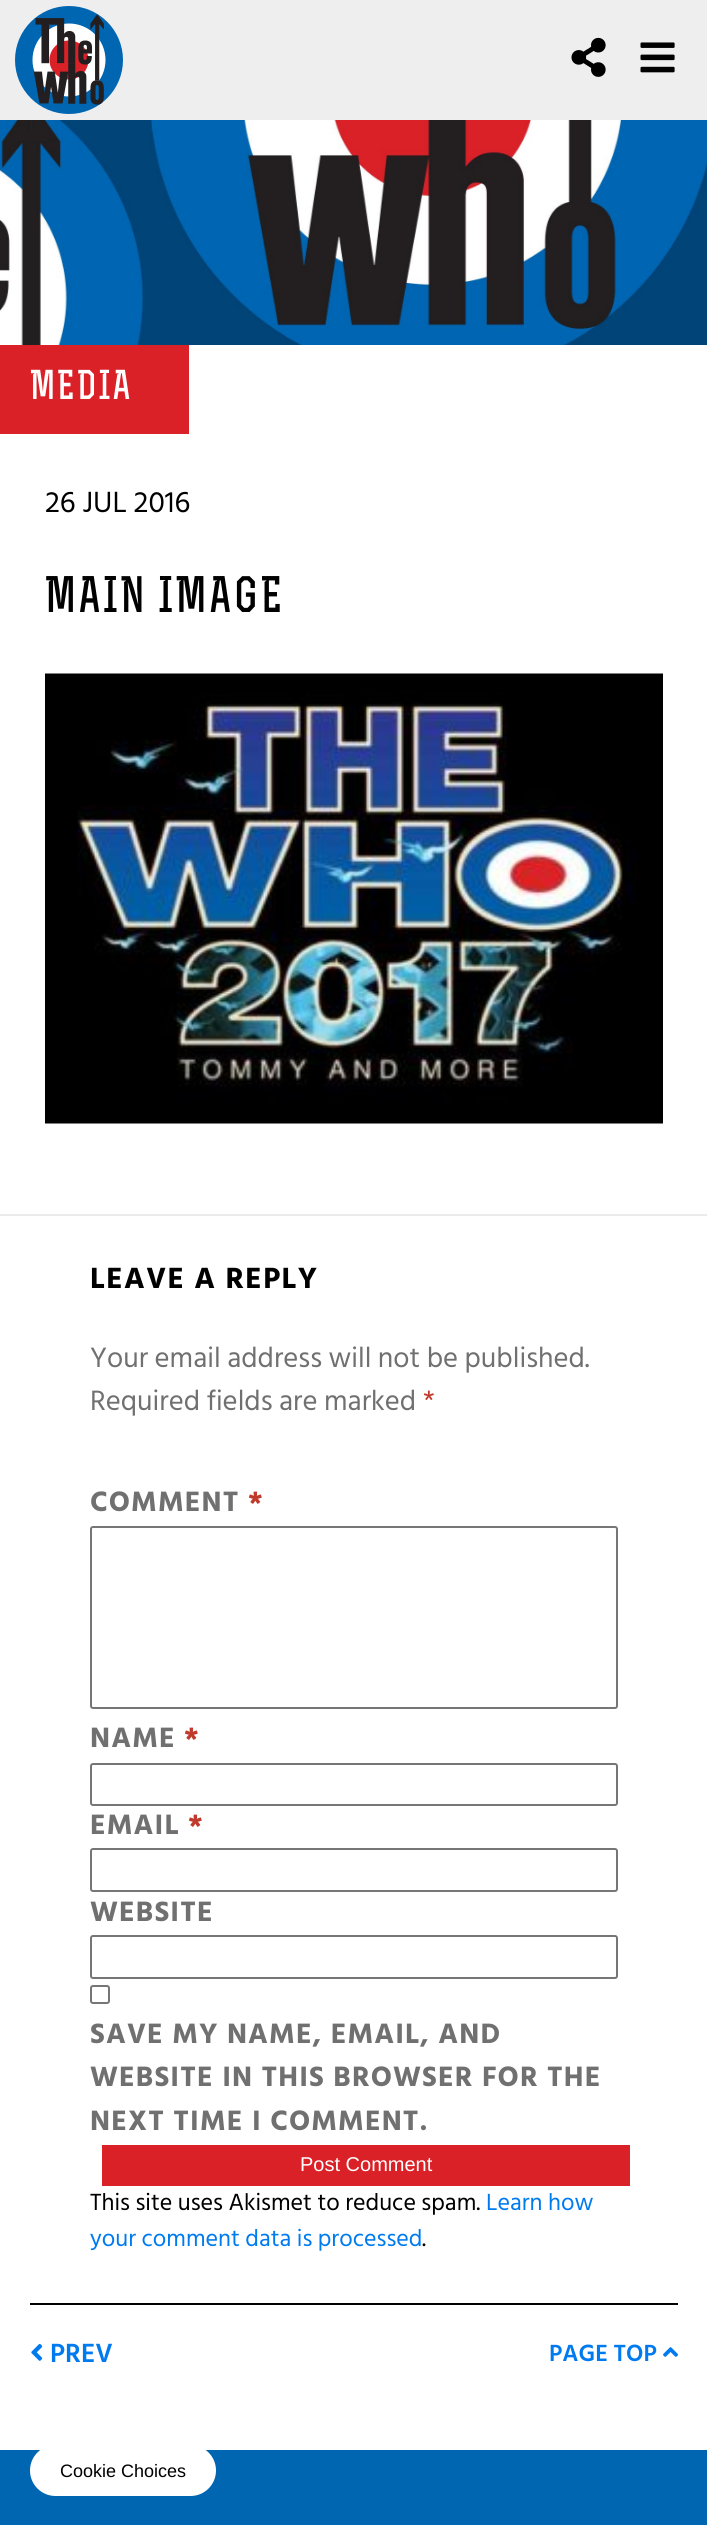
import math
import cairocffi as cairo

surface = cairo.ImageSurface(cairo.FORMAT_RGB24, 707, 2525)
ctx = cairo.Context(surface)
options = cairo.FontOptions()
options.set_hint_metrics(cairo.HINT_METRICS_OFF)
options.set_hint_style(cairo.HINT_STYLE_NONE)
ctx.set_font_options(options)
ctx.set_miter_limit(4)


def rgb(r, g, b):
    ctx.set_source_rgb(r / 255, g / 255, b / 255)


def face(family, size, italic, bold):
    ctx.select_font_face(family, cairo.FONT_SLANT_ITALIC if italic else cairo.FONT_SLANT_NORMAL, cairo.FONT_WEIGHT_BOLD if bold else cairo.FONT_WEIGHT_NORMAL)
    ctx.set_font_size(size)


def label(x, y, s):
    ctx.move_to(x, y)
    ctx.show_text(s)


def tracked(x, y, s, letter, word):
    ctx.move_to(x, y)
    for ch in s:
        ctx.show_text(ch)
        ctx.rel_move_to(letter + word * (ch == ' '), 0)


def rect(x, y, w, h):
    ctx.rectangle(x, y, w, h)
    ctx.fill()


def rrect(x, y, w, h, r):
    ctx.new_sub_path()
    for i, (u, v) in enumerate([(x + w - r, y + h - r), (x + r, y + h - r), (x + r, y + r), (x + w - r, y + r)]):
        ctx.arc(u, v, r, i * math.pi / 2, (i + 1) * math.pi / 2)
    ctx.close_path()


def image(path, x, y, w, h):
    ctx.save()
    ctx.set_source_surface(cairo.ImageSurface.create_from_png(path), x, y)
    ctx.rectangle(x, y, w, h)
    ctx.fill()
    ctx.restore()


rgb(255, 255, 255)
ctx.paint()
rgb(238, 238, 238)
rect(0, 0, 707, 120)
image('image0.png', 15, 6, 108, 108)
image('image1.png', 571, 37, 35, 40)
image('image2.png', 640, 42, 35, 31)
image('image3.png', 0, 120, 707, 225)
rgb(218, 33, 40)
rect(0, 345, 189, 89)
face('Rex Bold', 39, 0, 1)
rgb(255, 255, 255)
tracked(30, 399, 'MEDIA', 2, 0)
face('Hind Siliguri', 30, 0, 0)
rgb(0, 0, 0)
label(45, 512, '26 JUL 2016')
face('Rex Bold', 48, 0, 1)
tracked(45, 612, 'MAIN IMAGE', 2.4, 0)
image('image4.png', 45, 673, 618, 451)
rgb(235, 235, 235)
rect(0, 1214, 707, 2)
face('Hind Siliguri', 30, 0, 1)
rgb(0, 0, 0)
tracked(90, 1288, 'LEAVE A REPLY', 1.5, 0)
face('Hind Siliguri', 28.75, 0, 0)
rgb(112, 112, 112)
label(90, 1367, 'Your email address will not be published.')
label(90, 1410, 'Required fields are marked')
rgb(192, 57, 43)
label(423, 1410, '*')
face('Hind Siliguri', 28.75, 0, 1)
rgb(112, 112, 112)
tracked(90, 1511, 'COMMENT', 1.15, 0)
rgb(192, 57, 43)
tracked(248, 1511, '*', 1.15, 0)
rrect(91, 1527, 526, 181, 2)
rgb(118, 118, 118)
ctx.stroke()
rgb(112, 112, 112)
tracked(90, 1747, 'NAME', 1.15, 0)
rgb(192, 57, 43)
tracked(184, 1747, '*', 1.15, 0)
rrect(91, 1764, 526, 41, 2)
rgb(118, 118, 118)
ctx.stroke()
rgb(112, 112, 112)
tracked(90, 1834, 'EMAIL', 1.15, 0)
rgb(192, 57, 43)
tracked(188, 1834, '*', 1.15, 0)
rrect(91, 1849, 526, 42, 2)
rgb(118, 118, 118)
ctx.stroke()
rgb(112, 112, 112)
tracked(90, 1921, 'WEBSITE', 1.15, 0)
rrect(91, 1936, 526, 42, 2)
rgb(118, 118, 118)
ctx.stroke()
rrect(91, 1986, 18, 17, 2)
ctx.stroke()
rgb(112, 112, 112)
tracked(90, 2043, 'SAVE MY NAME, EMAIL, AND', 1.15, 0)
tracked(90, 2086, 'WEBSITE IN THIS BROWSER FOR THE', 1.15, 0)
tracked(90, 2130, 'NEXT TIME I COMMENT.', 1.15, 0)
rgb(218, 33, 39)
rect(102, 2145, 528, 41)
face('Liberation Sans', 20, 0, 0)
rgb(255, 255, 255)
label(300, 2171, 'Post Comment')
face('Hind Siliguri', 24, 0, 0)
rgb(0, 0, 0)
label(90, 2210, 'This site uses Akismet to reduce spam.')
rgb(0, 123, 239)
label(486, 2210, 'Learn how')
label(90, 2246, 'your comment data is processed')
rgb(0, 0, 0)
label(422, 2246, '.')
rect(30, 2303, 648, 2)
image('image5.png', 31, 2344, 12, 17)
face('Hind Siliguri SemiBold', 27, 0, 0)
rgb(0, 123, 239)
label(50, 2362, 'PREV')
face('Hind Siliguri SemiBold', 24, 0, 0)
label(549, 2361, 'PAGE TOP')
image('image6.png', 663, 2347, 15, 10)
rgb(0, 102, 178)
rect(0, 2450, 707, 75)
rgb(255, 255, 255)
rrect(30, 2445, 186, 51, 25.5)
ctx.fill()
face('Liberation Sans', 18, 0, 0)
rgb(0, 0, 0)
label(60, 2477, 'Cookie Choices')
surface.write_to_png('render.png')
